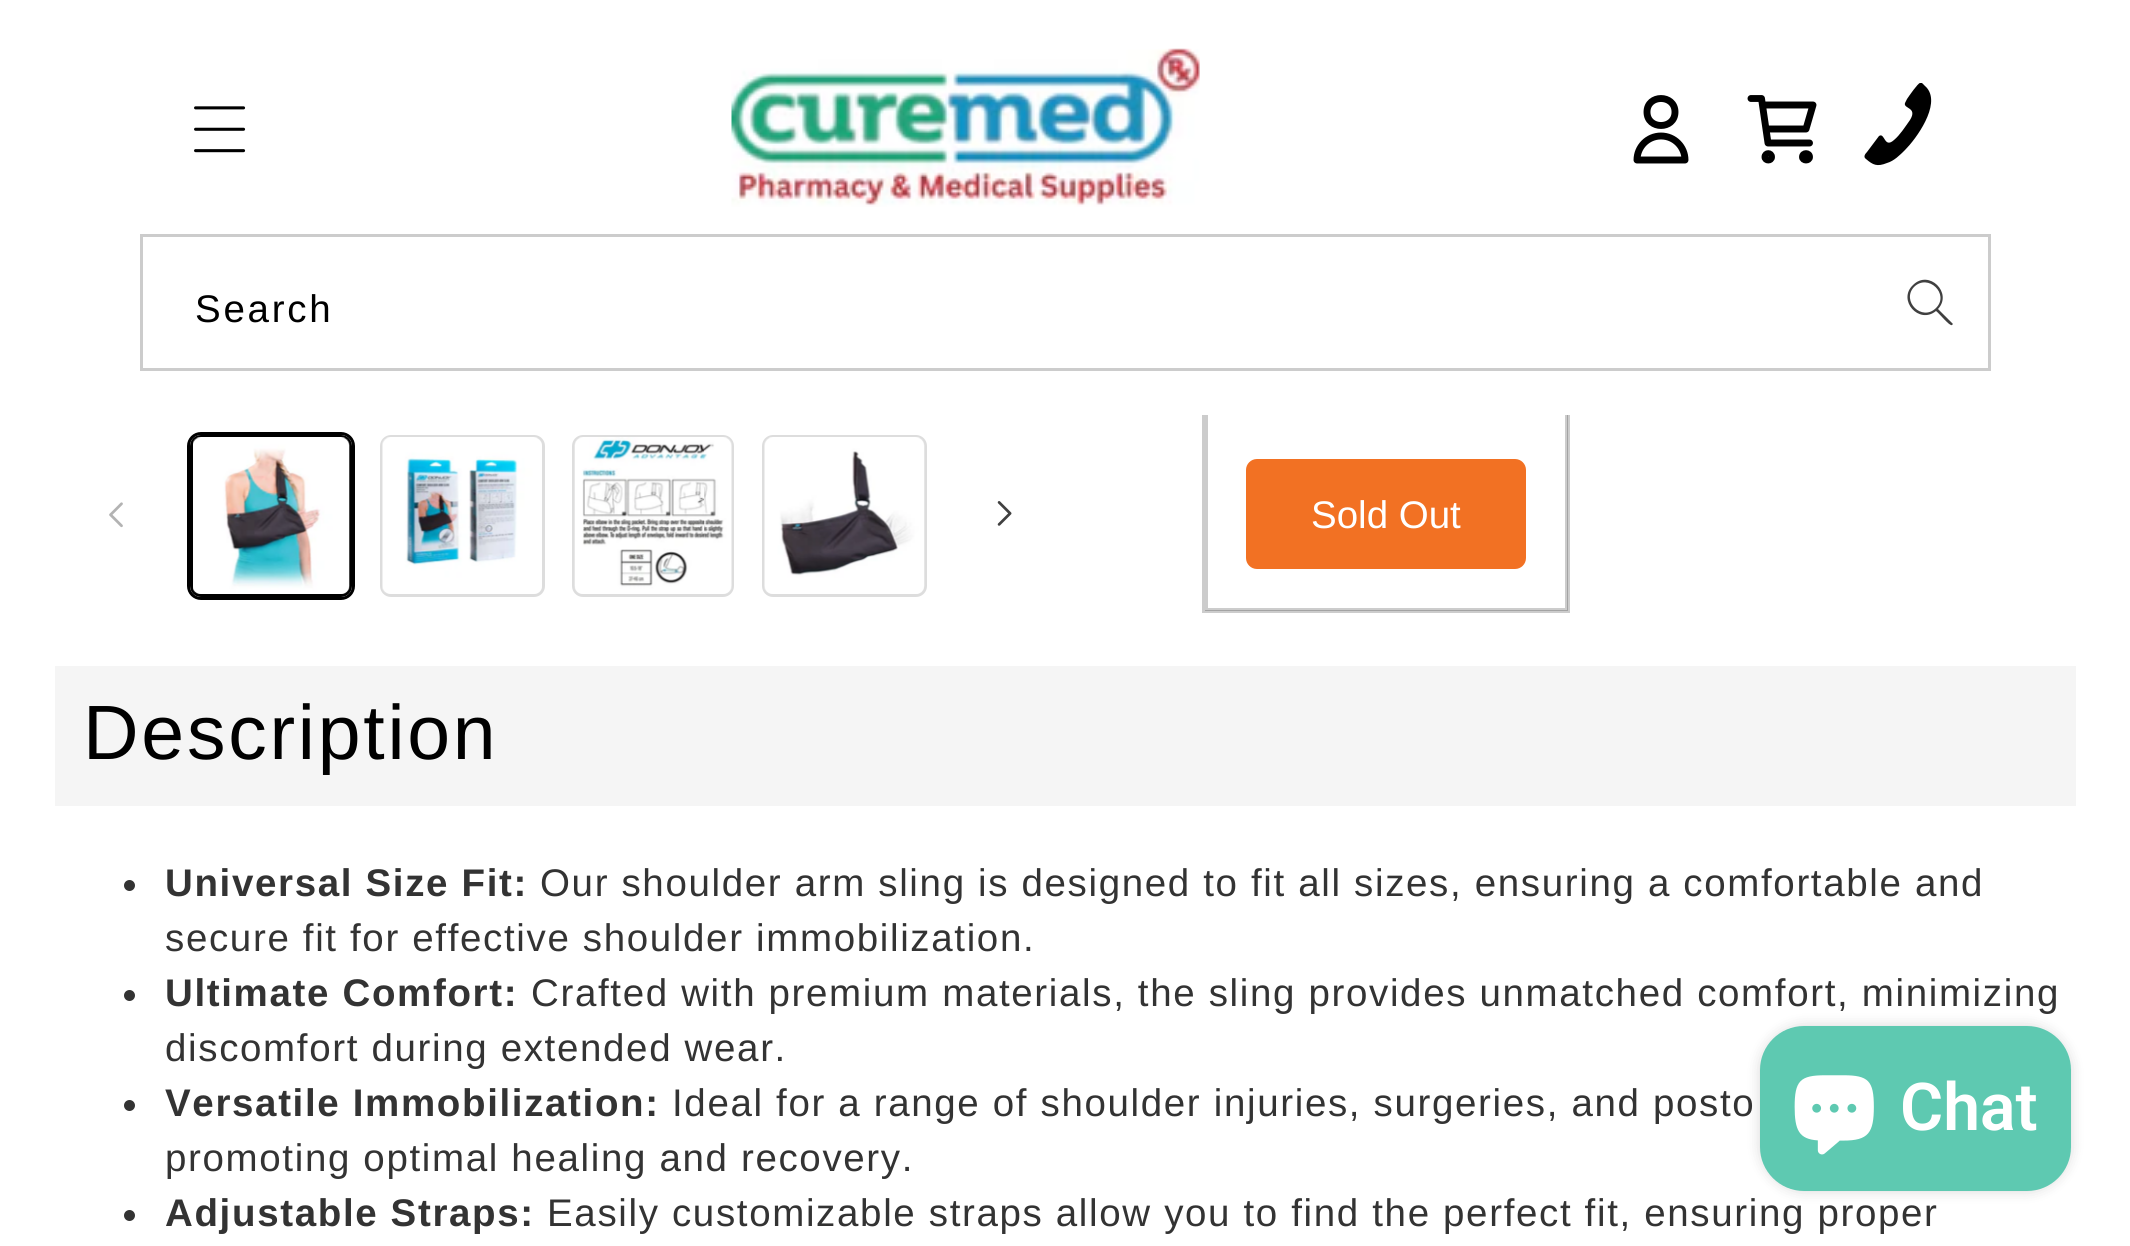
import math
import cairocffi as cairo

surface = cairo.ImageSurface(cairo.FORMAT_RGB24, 2130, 1246)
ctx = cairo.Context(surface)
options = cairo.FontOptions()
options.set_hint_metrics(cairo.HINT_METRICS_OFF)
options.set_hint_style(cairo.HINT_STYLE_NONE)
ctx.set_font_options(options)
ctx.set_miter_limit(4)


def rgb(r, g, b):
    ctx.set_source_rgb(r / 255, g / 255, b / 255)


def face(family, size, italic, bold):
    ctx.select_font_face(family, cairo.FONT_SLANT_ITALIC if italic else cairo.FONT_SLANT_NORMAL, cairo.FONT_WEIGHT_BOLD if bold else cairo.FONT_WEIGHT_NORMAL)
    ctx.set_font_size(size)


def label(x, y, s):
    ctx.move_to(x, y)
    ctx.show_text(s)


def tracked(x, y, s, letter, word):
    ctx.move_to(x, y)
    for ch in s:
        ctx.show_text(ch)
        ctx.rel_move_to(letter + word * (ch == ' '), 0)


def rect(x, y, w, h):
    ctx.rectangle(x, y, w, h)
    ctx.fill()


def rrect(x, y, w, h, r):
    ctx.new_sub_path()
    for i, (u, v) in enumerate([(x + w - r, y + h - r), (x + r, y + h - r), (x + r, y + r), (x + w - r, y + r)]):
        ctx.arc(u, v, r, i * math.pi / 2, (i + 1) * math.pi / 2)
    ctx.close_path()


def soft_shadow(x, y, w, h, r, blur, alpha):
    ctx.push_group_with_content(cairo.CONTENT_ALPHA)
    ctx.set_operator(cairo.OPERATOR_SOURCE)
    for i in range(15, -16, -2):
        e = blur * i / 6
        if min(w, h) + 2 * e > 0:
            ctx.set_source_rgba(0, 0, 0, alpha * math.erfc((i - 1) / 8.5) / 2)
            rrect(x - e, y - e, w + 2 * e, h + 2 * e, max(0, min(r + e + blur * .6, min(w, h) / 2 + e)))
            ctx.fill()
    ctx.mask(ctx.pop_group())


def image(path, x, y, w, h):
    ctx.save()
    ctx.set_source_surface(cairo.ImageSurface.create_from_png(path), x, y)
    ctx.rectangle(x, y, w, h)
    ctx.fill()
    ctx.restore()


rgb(255, 255, 255)
ctx.paint()
ctx.rectangle(1203.5, -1.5, 365, 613)
rgb(204, 204, 204)
ctx.set_line_width(3)
ctx.stroke()
ctx.rectangle(1206.5, 337.5, 360, 272)
ctx.set_source_rgba(0, 0, 0, 0.2)
ctx.stroke()
rgb(255, 255, 255)
rect(1202, 0, 368, 415)
image('image0.png', 194, 106, 52, 47)
image('image1.png', 731, 48, 469, 159)
ctx.new_path()
ctx.move_to(1675, 112)
ctx.curve_to(1675, 130, 1647, 130, 1647, 112)
ctx.curve_to(1647, 94, 1675, 94, 1675, 112)
ctx.close_path()
rgb(0, 0, 0)
ctx.set_line_width(6.9)
ctx.set_line_cap(cairo.LINE_CAP_ROUND)
ctx.set_line_join(cairo.LINE_JOIN_ROUND)
ctx.stroke()
ctx.new_path()
ctx.move_to(1661, 136)
ctx.curve_to(1647.5, 136, 1637, 147, 1637, 160)
ctx.line_to(1685, 160)
ctx.curve_to(1685, 147, 1674.5, 136, 1661, 136)
ctx.close_path()
ctx.stroke()
ctx.new_path()
ctx.move_to(1762.5, 105)
ctx.line_to(1813, 105)
ctx.line_to(1806, 129)
ctx.line_to(1766, 129)
ctx.move_to(1809.5, 143)
ctx.line_to(1768, 143)
ctx.line_to(1761.5, 98.5)
ctx.line_to(1751, 98.5)
ctx.move_to(1771.5, 157)
ctx.curve_to(1771.5, 161, 1765, 161, 1765, 157)
ctx.curve_to(1765, 152.5, 1771.5, 152.5, 1771.5, 157)
ctx.close_path()
ctx.move_to(1809.5, 157)
ctx.curve_to(1809.5, 161, 1802.5, 161, 1802.5, 157)
ctx.curve_to(1802.5, 152.5, 1809.5, 152.5, 1809.5, 157)
ctx.close_path()
ctx.stroke()
ctx.new_path()
ctx.move_to(1920, 83)
ctx.curve_to(1918, 83, 1909, 96, 1907, 99)
ctx.line_to(1905, 103)
ctx.curve_to(1903, 109, 1918, 107, 1910, 120)
ctx.curve_to(1905, 127, 1900, 135, 1894, 140)
ctx.curve_to(1884, 149, 1885, 132, 1879, 136)
ctx.line_to(1867, 152)
ctx.curve_to(1865, 154, 1863, 157, 1866, 159)
ctx.curve_to(1873, 165, 1877, 167, 1887, 163)
ctx.curve_to(1894, 161, 1900, 155, 1905, 150)
ctx.curve_to(1916, 139, 1941, 105, 1927, 88)
ctx.line_to(1922, 83)
ctx.close_path()
ctx.fill()
ctx.rectangle(141.5, 235.5, 1848, 134)
rgb(204, 204, 204)
ctx.set_line_width(3)
ctx.set_line_cap(cairo.LINE_CAP_BUTT)
ctx.set_line_join(cairo.LINE_JOIN_MITER)
ctx.stroke()
face('Liberation Sans', 38.5, 0, 0)
rgb(0, 0, 0)
tracked(195, 322, 'Search', 2.75, 0)
rgb(64, 64, 64)
ctx.set_fill_rule(cairo.FILL_RULE_EVEN_ODD)
ctx.new_path()
ctx.move_to(1936, 308)
ctx.curve_to(1922, 322, 1901, 301, 1914, 287)
ctx.curve_to(1928, 273, 1950, 294, 1936, 308)
ctx.close_path()
ctx.move_to(1936, 311)
ctx.curve_to(1919, 325, 1897, 300, 1913, 285)
ctx.curve_to(1929, 269, 1953, 293, 1938, 309)
ctx.line_to(1953, 324)
ctx.line_to(1952, 325)
ctx.curve_to(1950, 327, 1939, 313, 1936, 311)
ctx.close_path()
ctx.fill()
image('image2.png', 109, 502, 14, 26)
rrect(188.5, 433.5, 165, 165, 12.5)
rgb(0, 0, 0)
ctx.stroke()
rrect(191.5, 436.5, 159, 159, 9.5)
ctx.stroke()
image('image3.png', 193, 437, 157, 157)
rrect(381.5, 436.5, 162, 159, 9.5)
rgb(221, 221, 221)
ctx.stroke()
image('image4.png', 382, 437, 160, 157)
rrect(573.5, 436.5, 159, 159, 9.5)
ctx.stroke()
image('image5.png', 574, 437, 158, 157)
rrect(763.5, 436.5, 162, 159, 9.5)
ctx.stroke()
image('image6.png', 764, 437, 161, 157)
image('image7.png', 997, 501, 15, 25)
rgb(242, 113, 35)
rrect(1246, 459, 280, 110, 11)
ctx.fill()
rgb(255, 255, 255)
label(1311, 528, 'Sold Out')
rgb(245, 245, 245)
rect(55, 666, 2021, 140)
face('Liberation Sans', 77, 0, 0)
rgb(0, 0, 0)
tracked(83, 759, 'Description', 2.75, 0)
rgb(51, 51, 51)
ctx.new_path()
ctx.arc(129.5, 885.5, 5.5, 0, 2 * math.pi)
ctx.fill()
face('Liberation Sans', 38.5, 0, 1)
tracked(165, 896, 'Universal Size Fit:', 1.65, 0)
face('Liberation Sans', 38.5, 0, 0)
tracked(540, 896, 'Our shoulder arm sling is designed to fit all sizes, ensuring a comfortable and', 1.65, 0)
tracked(165, 951, 'secure fit for effective shoulder immobilization.', 1.65, 0)
ctx.new_path()
ctx.arc(129.5, 995.5, 5.5, 0, 2 * math.pi)
ctx.fill()
face('Liberation Sans', 38.5, 0, 1)
tracked(165, 1006, 'Ultimate Comfort:', 1.65, 0)
face('Liberation Sans', 38.5, 0, 0)
tracked(531, 1006, 'Crafted with premium materials, the sling provides unmatched comfort, minimizing', 1.65, 0)
tracked(165, 1061, 'discomfort during extended wear.', 1.65, 0)
ctx.new_path()
ctx.arc(129.5, 1105.5, 5.5, 0, 2 * math.pi)
ctx.fill()
face('Liberation Sans', 38.5, 0, 1)
tracked(165, 1116, 'Versatile Immobilization:', 1.65, 0)
face('Liberation Sans', 38.5, 0, 0)
tracked(672, 1116, 'Ideal for a range of shoulder injuries, surgeries, and posto', 1.65, 0)
tracked(165, 1171, 'promoting optimal healing and recovery.', 1.65, 0)
ctx.new_path()
ctx.arc(129.5, 1215.5, 5.5, 0, 2 * math.pi)
ctx.fill()
face('Liberation Sans', 38.5, 0, 1)
tracked(165, 1226, 'Adjustable Straps:', 1.65, 0)
face('Liberation Sans', 38.5, 0, 0)
tracked(547, 1226, 'Easily customizable straps allow you to find the perfect fit, ensuring proper', 1.65, 0)
rgb(0, 0, 0)
soft_shadow(1760, 1026, 311, 165, 44, 7, 0.15)
rgb(94, 201, 177)
rrect(1760, 1026, 311, 165, 44)
ctx.fill()
image('image8.png', 1794, 1075, 80, 80)
face('Roboto SemiBold', 66, 0, 0)
rgb(255, 255, 255)
label(1900, 1130, 'Chat')
surface.write_to_png('render.png')
